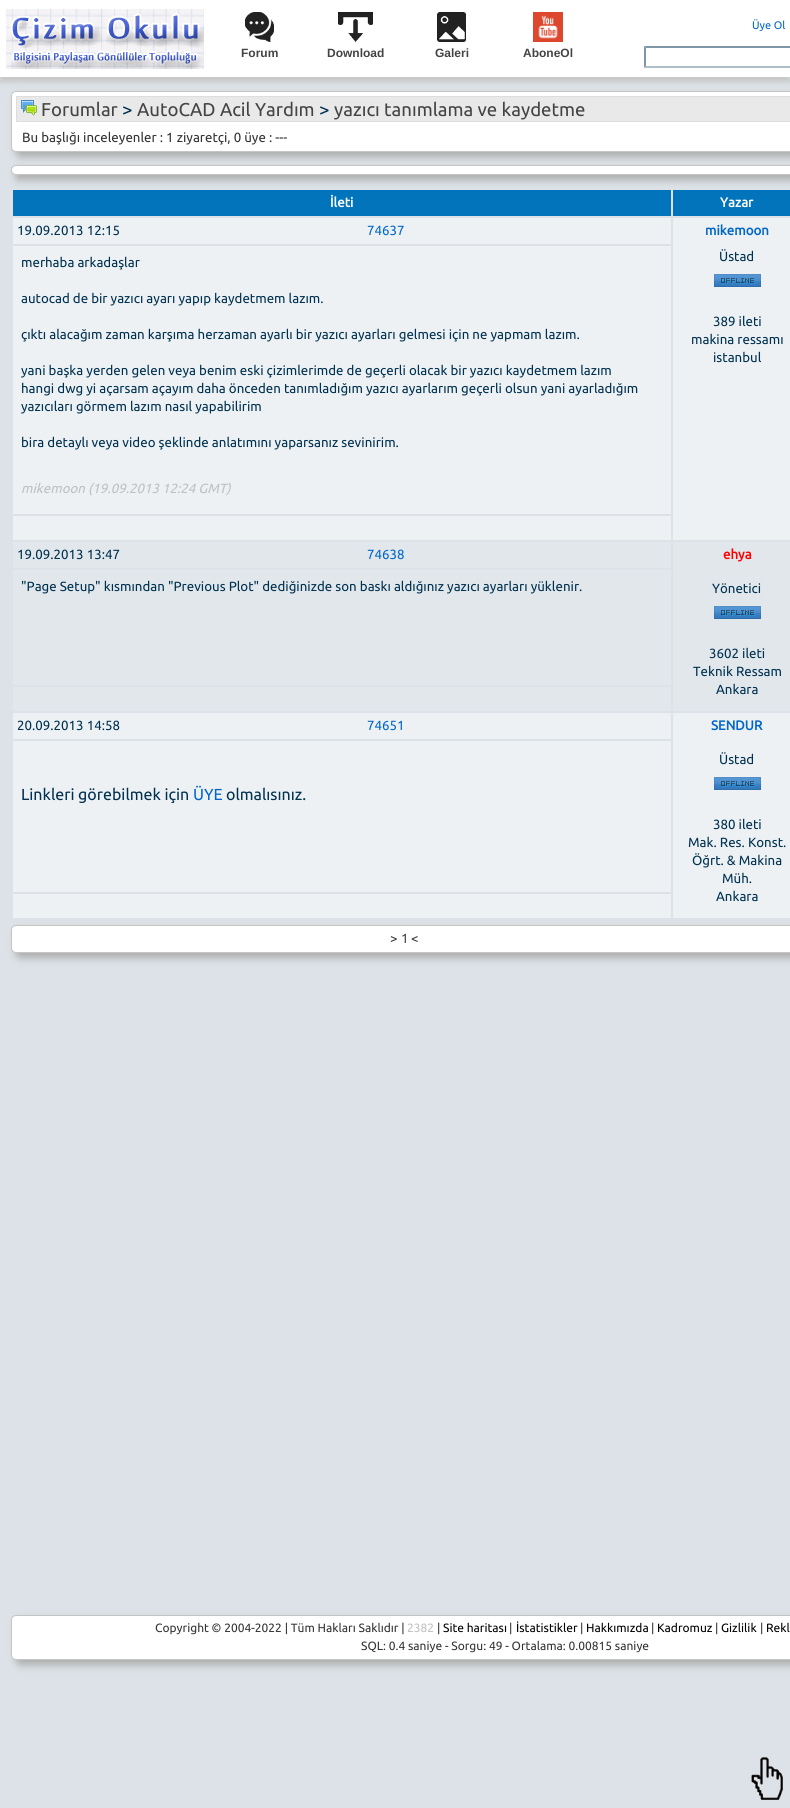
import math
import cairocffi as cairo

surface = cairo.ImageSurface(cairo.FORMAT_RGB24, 790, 1808)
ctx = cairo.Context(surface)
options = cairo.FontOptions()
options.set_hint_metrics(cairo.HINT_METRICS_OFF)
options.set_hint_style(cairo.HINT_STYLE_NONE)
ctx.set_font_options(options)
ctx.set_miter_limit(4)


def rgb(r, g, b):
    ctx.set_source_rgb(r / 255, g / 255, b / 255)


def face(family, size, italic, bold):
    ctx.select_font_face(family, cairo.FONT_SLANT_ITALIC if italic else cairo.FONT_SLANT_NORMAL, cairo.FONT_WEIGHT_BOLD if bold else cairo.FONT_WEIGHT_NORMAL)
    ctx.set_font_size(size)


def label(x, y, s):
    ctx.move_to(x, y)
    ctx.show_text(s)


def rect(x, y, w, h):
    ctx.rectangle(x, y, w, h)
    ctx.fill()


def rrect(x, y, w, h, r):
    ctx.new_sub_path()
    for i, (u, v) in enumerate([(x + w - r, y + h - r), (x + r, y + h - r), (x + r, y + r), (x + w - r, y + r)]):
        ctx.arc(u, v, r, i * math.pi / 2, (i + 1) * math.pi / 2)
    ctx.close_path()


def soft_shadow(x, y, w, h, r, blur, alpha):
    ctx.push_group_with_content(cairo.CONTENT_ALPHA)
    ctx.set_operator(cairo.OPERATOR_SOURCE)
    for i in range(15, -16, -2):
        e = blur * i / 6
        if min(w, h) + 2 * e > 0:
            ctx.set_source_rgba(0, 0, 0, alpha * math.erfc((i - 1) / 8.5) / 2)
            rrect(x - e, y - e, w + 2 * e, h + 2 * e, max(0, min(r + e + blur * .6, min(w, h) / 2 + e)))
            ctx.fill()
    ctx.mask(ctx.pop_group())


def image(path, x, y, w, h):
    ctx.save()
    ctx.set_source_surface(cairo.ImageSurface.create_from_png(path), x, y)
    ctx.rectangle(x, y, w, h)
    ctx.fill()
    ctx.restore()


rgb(220, 226, 231)
ctx.paint()
rgb(199, 199, 199)
soft_shadow(0, 5, 790, 77, 0, 2.5, 1)
rgb(255, 255, 255)
rect(0, 0, 790, 77)
image('image0.png', 6, 9, 198, 60)
face('Ubuntu', 11, 0, 0)
rgb(0, 102, 204)
label(752, 29, 'Üye Ol')
image('image1.png', 245, 12, 29, 30)
image('image2.png', 338, 12, 35, 30)
image('image3.png', 437, 12, 29, 30)
image('image4.png', 533, 12, 30, 30)
face('Liberation Sans', 12, 0, 1)
rgb(68, 68, 68)
label(241, 57, 'Forum')
label(327, 57, 'Download')
label(435, 57, 'Galeri')
label(523, 57, 'AboneOl')
rgb(127, 152, 167)
ctx.new_path()
ctx.move_to(644, 46)
ctx.line_to(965, 46)
ctx.line_to(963, 48)
ctx.line_to(646, 48)
ctx.close_path()
ctx.fill()
rgb(175, 191, 200)
ctx.new_path()
ctx.move_to(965, 68)
ctx.line_to(644, 68)
ctx.line_to(646, 66)
ctx.line_to(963, 66)
ctx.close_path()
ctx.fill()
rgb(127, 152, 167)
ctx.new_path()
ctx.move_to(644, 68)
ctx.line_to(644, 46)
ctx.line_to(646, 48)
ctx.line_to(646, 66)
ctx.close_path()
ctx.fill()
rgb(173, 173, 173)
soft_shadow(16, 96, 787, 61, 5, 4, 1)
rgb(255, 255, 255)
rrect(11.5, 91.5, 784, 60, 4.5)
ctx.fill_preserve()
rgb(197, 197, 197)
ctx.set_line_width(1)
ctx.stroke()
rgb(233, 233, 233)
ctx.rectangle(16.5, 96.5, 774, 25)
ctx.fill_preserve()
rgb(221, 221, 221)
ctx.stroke()
image('image5.png', 21, 100, 16, 16)
face('Ubuntu', 18.6, 0, 0)
rgb(68, 68, 68)
label(41, 116, 'Forumlar')
rgb(0, 49, 80)
label(122, 116, '>')
rgb(68, 68, 68)
label(137, 116, 'AutoCAD Acil Yardım')
rgb(0, 49, 80)
label(319, 116, '>')
rgb(68, 68, 68)
label(334, 116, 'yazıcı tanımlama ve kaydetme')
face('Ubuntu', 13.3, 0, 0)
rgb(51, 51, 51)
label(22, 142, 'Bu başlığı inceleyenler : 1 ziyaretçi, 0 üye : ---')
rgb(173, 173, 173)
soft_shadow(16, 170, 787, 10, 5, 4, 1)
rgb(255, 255, 255)
rrect(11.5, 165.5, 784, 9, 4.5)
ctx.fill_preserve()
rgb(197, 197, 197)
ctx.stroke()
rgb(1, 116, 187)
rect(13, 190, 658, 26)
face('Ubuntu', 13.3, 0, 1)
rgb(255, 255, 255)
label(330, 207, 'İleti')
rgb(1, 116, 187)
rect(673, 190, 117, 26)
rgb(255, 255, 255)
label(720, 207, 'Yazar')
rgb(237, 241, 243)
rect(13, 218, 658, 26)
face('Ubuntu', 13.3, 0, 0)
rgb(0, 49, 80)
label(17, 235, '19.09.2013 12:15')
rgb(0, 102, 204)
label(367, 235, '74637')
rgb(237, 241, 243)
rect(673, 218, 117, 322)
face('Ubuntu', 13.3, 0, 1)
rgb(0, 102, 204)
label(705, 235, 'mikemoon')
face('Ubuntu', 13.3, 0, 0)
rgb(0, 49, 80)
label(719, 261, 'Üstad')
image('image6.png', 714, 274, 47, 13)
label(713, 326, '389 ileti')
label(691, 344, 'makina ressamı')
label(713, 362, 'istanbul')
rgb(237, 241, 243)
rect(13, 246, 658, 268)
rgb(0, 49, 80)
label(21, 267, 'merhaba arkadaşlar')
label(21, 303, 'autocad de bir yazıcı ayarı yapıp kaydetmem lazım.')
label(21, 339, 'çıktı alacağım zaman karşıma herzaman ayarlı bir yazıcı ayarları gelmesi için ne yapmam lazım.')
label(21, 375, 'yani başka yerden gelen veya benim eski çizimlerimde de geçerli olacak bir yazıcı kaydetmem lazım')
label(21, 393, 'hangi dwg yi açarsam açayım daha önceden tanımladığım yazıcı ayarlarım geçerli olsun yani ayarladığım')
label(21, 411, 'yazıcıları görmem lazım nasıl yapabilirim')
label(21, 447, 'bira detaylı veya video şeklinde anlatımını yaparsanız sevinirim.')
face('Ubuntu', 13.3, 1, 0)
rgb(192, 192, 192)
label(21, 493, 'mikemoon (19.09.2013 12:24 GMT)')
rgb(237, 241, 243)
rect(13, 516, 658, 24)
rgb(225, 231, 235)
rect(13, 542, 658, 26)
face('Ubuntu', 13.3, 0, 0)
rgb(0, 49, 80)
label(17, 559, '19.09.2013 13:47')
rgb(0, 102, 204)
label(367, 559, '74638')
rgb(225, 231, 235)
rect(673, 542, 117, 169)
face('Ubuntu', 13.3, 0, 1)
rgb(255, 0, 0)
label(723, 559, 'ehya')
face('Ubuntu', 13.3, 0, 0)
rgb(0, 49, 80)
label(712, 593, 'Yönetici')
image('image6.png', 714, 606, 47, 13)
label(709, 658, '3602 ileti')
label(693, 676, 'Teknik Ressam')
label(716, 694, 'Ankara')
rgb(225, 231, 235)
rect(13, 570, 658, 115)
rgb(0, 49, 80)
label(21, 591, '"Page Setup" kısmından "Previous Plot" dediğinizde son baskı aldığınız yazıcı ayarları yüklenir.')
rgb(225, 231, 235)
rect(13, 687, 658, 24)
rgb(237, 241, 243)
rect(13, 713, 658, 26)
rgb(0, 49, 80)
label(17, 730, '20.09.2013 14:58')
rgb(0, 102, 204)
label(367, 730, '74651')
rgb(173, 173, 173)
soft_shadow(16, 930, 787, 28, 5, 4, 1)
rgb(237, 241, 243)
rect(673, 713, 117, 205)
face('Ubuntu', 13.3, 0, 1)
rgb(0, 102, 204)
label(711, 730, 'SENDUR')
face('Ubuntu', 13.3, 0, 0)
rgb(0, 49, 80)
label(719, 764, 'Üstad')
image('image6.png', 714, 777, 47, 13)
label(713, 829, '380 ileti')
label(688, 847, 'Mak. Res. Konst.')
label(692, 865, 'Öğrt. & Makina')
label(722, 883, 'Müh.')
label(716, 901, 'Ankara')
rgb(237, 241, 243)
rect(13, 741, 658, 151)
face('Ubuntu', 16, 0, 0)
rgb(0, 49, 80)
label(21, 800, 'Linkleri görebilmek için')
rgb(0, 102, 204)
label(193, 800, 'ÜYE')
rgb(0, 49, 80)
label(226, 800, 'olmalısınız.')
rgb(237, 241, 243)
rect(13, 894, 658, 24)
rgb(255, 255, 255)
rrect(11.5, 925.5, 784, 27, 4.5)
ctx.fill_preserve()
rgb(197, 197, 197)
ctx.stroke()
face('Ubuntu', 13.3, 0, 0)
rgb(51, 51, 51)
label(390, 943, '>')
rgb(68, 68, 68)
label(401, 943, '1')
rgb(51, 51, 51)
label(411, 943, '<')
image('image7.png', 751, 1757, 32, 43)
rgb(173, 173, 173)
soft_shadow(16, 1620, 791, 45, 5, 4, 1)
rgb(255, 255, 255)
rrect(11.5, 1615.5, 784, 44, 4.5)
ctx.fill_preserve()
rgb(197, 197, 197)
ctx.stroke()
face('Ubuntu', 12, 0, 0)
rgb(51, 51, 51)
label(155, 1632, 'Copyright © 2004-2022 | Tüm Hakları Saklıdır |')
rgb(192, 192, 192)
label(407, 1632, '2382')
rgb(51, 51, 51)
label(437, 1632, '|')
rgb(0, 0, 0)
label(443, 1632, 'Site haritası')
rgb(51, 51, 51)
label(509, 1632, '|')
rgb(0, 0, 0)
label(516, 1632, 'İstatistikler')
rgb(51, 51, 51)
label(580, 1632, '|')
rgb(0, 0, 0)
label(586, 1632, 'Hakkımızda')
rgb(51, 51, 51)
label(651, 1632, '|')
rgb(0, 0, 0)
label(657, 1632, 'Kadromuz')
rgb(51, 51, 51)
label(715, 1632, '|')
rgb(0, 0, 0)
label(721, 1632, 'Gizlilik')
rgb(51, 51, 51)
label(760, 1632, '|')
rgb(0, 0, 0)
label(766, 1632, 'Rekl')
rgb(51, 51, 51)
label(361, 1650, 'SQL: 0.4 saniye - Sorgu: 49 - Ortalama: 0.00815 saniye')
surface.write_to_png('render.png')
